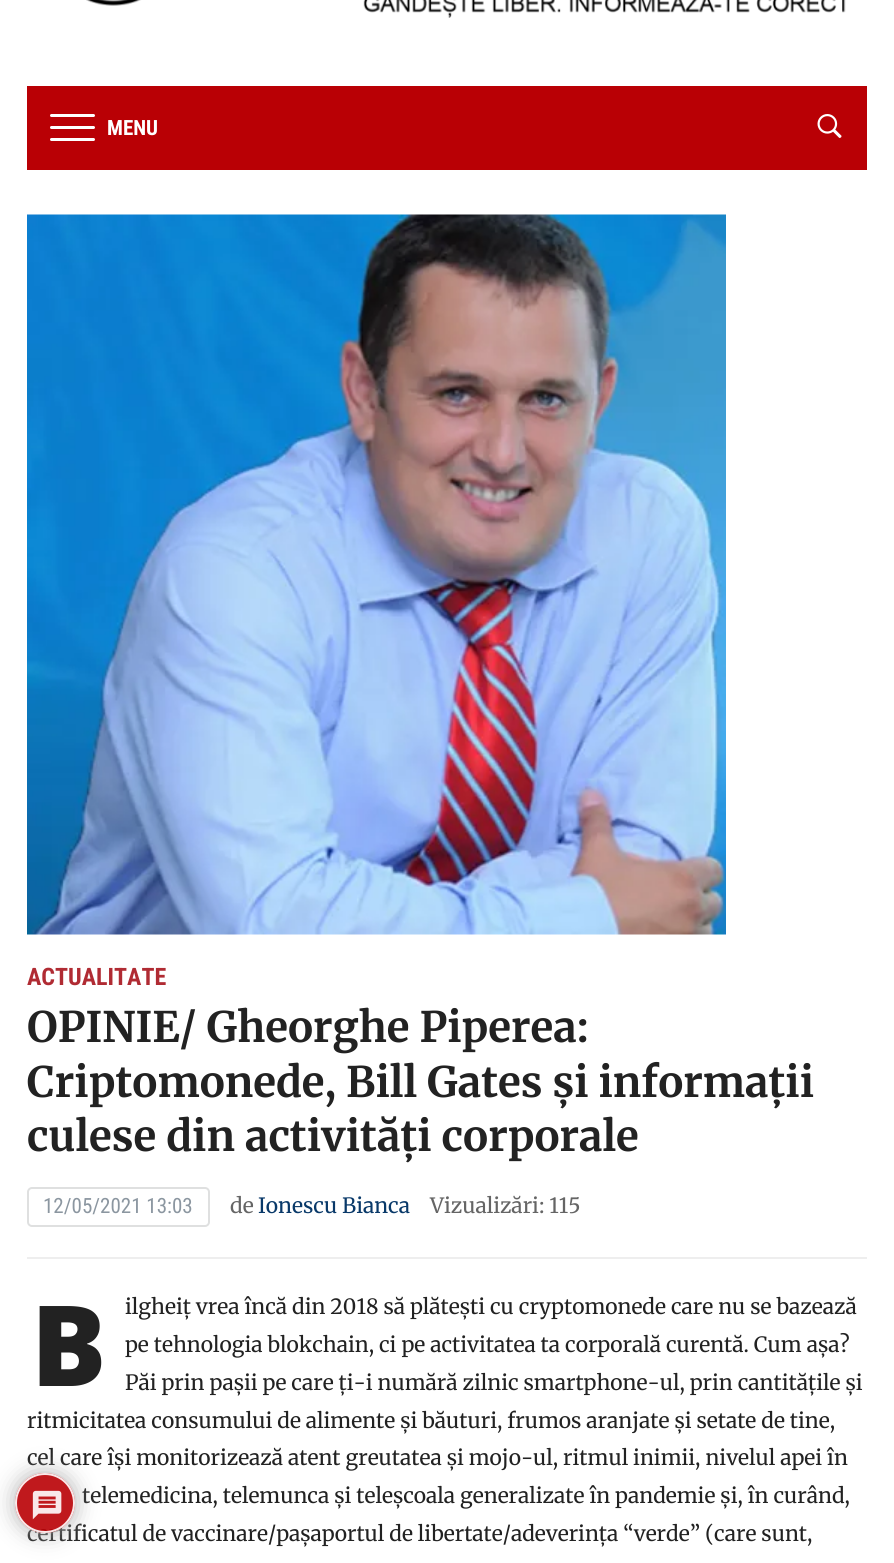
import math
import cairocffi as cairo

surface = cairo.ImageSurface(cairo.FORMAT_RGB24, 894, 1563)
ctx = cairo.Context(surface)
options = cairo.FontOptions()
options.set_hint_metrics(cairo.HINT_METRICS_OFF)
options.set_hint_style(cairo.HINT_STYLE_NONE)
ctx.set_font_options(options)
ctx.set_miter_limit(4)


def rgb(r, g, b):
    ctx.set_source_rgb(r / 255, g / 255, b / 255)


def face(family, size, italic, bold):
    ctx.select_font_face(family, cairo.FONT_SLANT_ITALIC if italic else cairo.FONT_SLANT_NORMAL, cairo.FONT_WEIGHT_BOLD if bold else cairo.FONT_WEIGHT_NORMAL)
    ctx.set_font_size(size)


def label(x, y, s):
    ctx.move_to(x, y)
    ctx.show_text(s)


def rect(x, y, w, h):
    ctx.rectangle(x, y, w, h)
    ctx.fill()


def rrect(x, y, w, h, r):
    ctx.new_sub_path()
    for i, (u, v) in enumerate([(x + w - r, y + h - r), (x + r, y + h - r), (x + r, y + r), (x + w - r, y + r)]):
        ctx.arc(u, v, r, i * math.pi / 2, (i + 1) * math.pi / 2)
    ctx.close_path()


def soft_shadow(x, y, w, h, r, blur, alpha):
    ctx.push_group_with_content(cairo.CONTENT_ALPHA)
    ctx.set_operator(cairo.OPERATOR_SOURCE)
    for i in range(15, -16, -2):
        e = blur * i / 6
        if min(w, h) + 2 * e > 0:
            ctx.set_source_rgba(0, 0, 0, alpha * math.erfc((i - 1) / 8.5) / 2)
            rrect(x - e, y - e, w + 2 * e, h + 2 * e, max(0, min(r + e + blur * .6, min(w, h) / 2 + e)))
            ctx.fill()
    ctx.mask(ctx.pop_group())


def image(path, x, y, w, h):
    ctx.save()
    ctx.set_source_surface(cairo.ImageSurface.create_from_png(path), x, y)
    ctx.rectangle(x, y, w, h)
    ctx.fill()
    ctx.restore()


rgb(255, 255, 255)
ctx.paint()
image('image0.png', 86, 0, 760, 18)
rgb(185, 0, 5)
rect(27, 86, 840, 84)
rgb(255, 255, 255)
rrect(50, 114, 45, 3, 1.5)
ctx.fill()
rrect(50, 126, 45, 3, 1.5)
ctx.fill()
rrect(50, 138, 45, 3, 1.5)
ctx.fill()
face('Roboto Condensed', 21, 0, 1)
label(107, 135, 'MENU')
image('image1.png', 817, 114, 25, 24)
image('image2.png', 27, 214, 699, 721)
face('Roboto Condensed', 24, 0, 1)
rgb(176, 43, 51)
label(27, 985, 'ACTUALITATE')
face('Merriweather', 42, 0, 1)
rgb(34, 34, 34)
label(27, 1042, 'OPINIE/ Gheorghe Piperea:')
label(27, 1097, 'Criptomonede, Bill Gates și informații')
label(27, 1151, 'culese din activități corporale')
rgb(238, 238, 238)
rect(27, 1257, 840, 2)
rrect(28, 1188, 181, 38, 4)
rgb(223, 224, 224)
ctx.stroke()
face('Roboto Condensed', 21, 0, 0)
rgb(139, 150, 160)
label(43, 1213, '12/05/2021 13:03')
face('Merriweather', 21, 0, 0)
rgb(101, 101, 101)
label(230, 1213, 'de')
rgb(9, 57, 105)
label(258, 1213, 'Ionescu Bianca')
rgb(101, 101, 101)
label(430, 1213, 'Vizualizări: 115')
face('Noto Sans Black', 112, 0, 0)
rgb(34, 34, 34)
label(31, 1386, 'B')
face('Merriweather', 21, 0, 0)
label(125, 1314, 'ilgheiț vrea încă din 2018 să plătești cu cryptomonede care nu se bazează')
label(125, 1352, 'pe tehnologia blokchain, ci pe activitatea ta corporală curentă. Cum așa?')
label(125, 1390, 'Păi prin pașii pe care ți-i numără zilnic smartphone-ul, prin cantitățile și')
label(27, 1428, 'ritmicitatea consumului de alimente și băuturi, frumos aranjate și setate de tine,')
label(27, 1465, 'cel care își monitorizează atent greutatea și mojo-ul, ritmul inimii, nivelul apei în')
label(82, 1503, 'telemedicina, telemunca și teleșcoala generalizate în pandemie și, în curând,')
label(27, 1541, 'certificatul de vaccinare/pașaportul de libertate/adeverința “verde” (care sunt,')
ctx.save()
ctx.set_fill_rule(cairo.FILL_RULE_EVEN_ODD)
ctx.new_path()
ctx.move_to(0, 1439)
ctx.line_to(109, 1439)
ctx.line_to(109, 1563)
ctx.line_to(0, 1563)
ctx.close_path()
ctx.move_to(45, 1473)
ctx.curve_to(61.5, 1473, 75, 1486.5, 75, 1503)
ctx.curve_to(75, 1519.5, 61.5, 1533, 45, 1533)
ctx.curve_to(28.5, 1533, 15, 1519.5, 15, 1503)
ctx.curve_to(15, 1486.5, 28.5, 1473, 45, 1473)
ctx.close_path()
ctx.clip()
rgb(170, 170, 170)
soft_shadow(15, 1473, 60, 60, 30, 11, 0.9)
ctx.restore()
ctx.set_source_rgba(0.725, 0, 0.02, 0.9)
ctx.arc(45, 1503, 30, 0, 2 * math.pi)
ctx.fill()
ctx.arc(45, 1503, 29, 0, 2 * math.pi)
ctx.set_source_rgba(1, 1, 1, 0.9)
ctx.stroke()
image('image3.png', 32, 1490, 30, 30)
surface.write_to_png('render.png')
